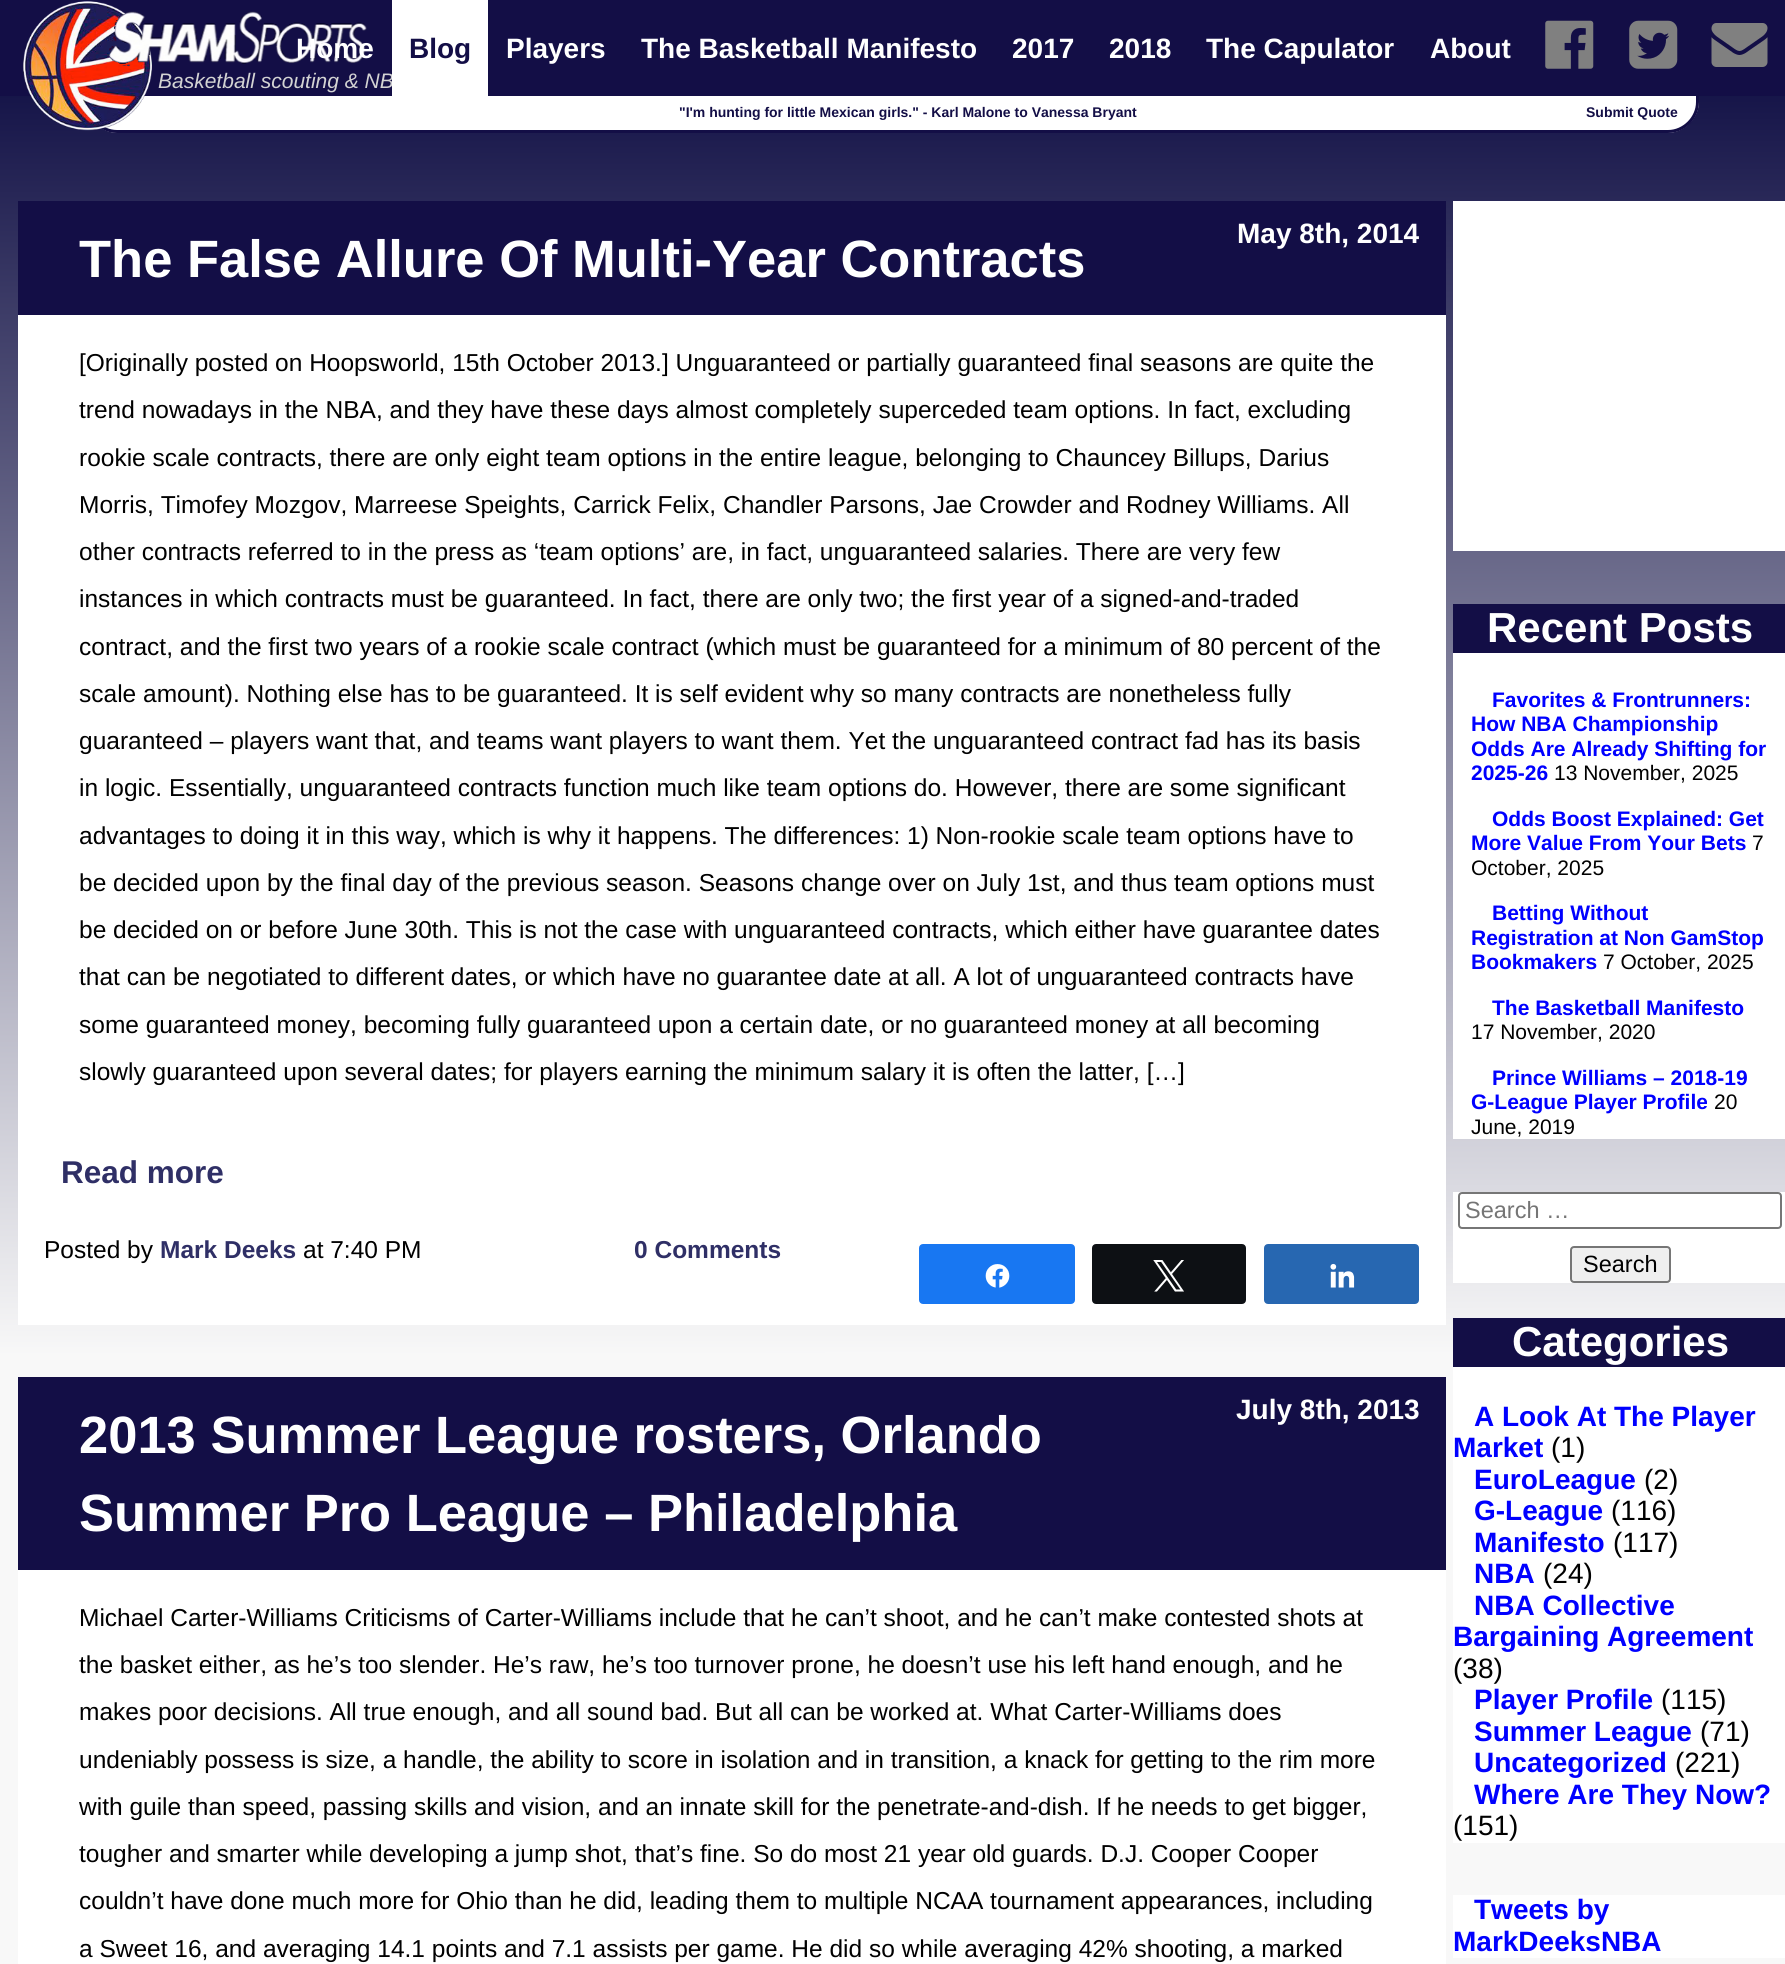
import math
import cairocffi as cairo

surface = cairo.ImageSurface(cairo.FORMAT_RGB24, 1785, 1964)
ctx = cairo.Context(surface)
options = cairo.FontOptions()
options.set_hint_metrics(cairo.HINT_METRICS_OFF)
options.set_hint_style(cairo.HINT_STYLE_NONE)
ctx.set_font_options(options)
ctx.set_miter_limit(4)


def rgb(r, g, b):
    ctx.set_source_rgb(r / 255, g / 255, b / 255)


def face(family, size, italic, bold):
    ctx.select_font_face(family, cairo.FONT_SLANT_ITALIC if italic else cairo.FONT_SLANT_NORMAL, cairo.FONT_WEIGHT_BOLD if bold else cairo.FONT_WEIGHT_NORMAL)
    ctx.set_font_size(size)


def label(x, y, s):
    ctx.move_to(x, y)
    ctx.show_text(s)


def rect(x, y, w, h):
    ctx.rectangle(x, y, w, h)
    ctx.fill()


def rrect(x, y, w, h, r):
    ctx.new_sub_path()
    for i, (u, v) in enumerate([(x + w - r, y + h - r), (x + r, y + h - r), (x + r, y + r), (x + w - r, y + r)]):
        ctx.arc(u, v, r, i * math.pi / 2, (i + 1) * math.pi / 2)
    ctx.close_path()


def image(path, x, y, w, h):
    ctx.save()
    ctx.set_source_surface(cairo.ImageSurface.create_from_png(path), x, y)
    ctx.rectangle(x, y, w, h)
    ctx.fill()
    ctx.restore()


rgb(255, 255, 255)
ctx.paint()
rgb(19, 14, 70)
rect(0, 0, 1785, 96)
gradient = cairo.LinearGradient(892, 0, 893, 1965)
gradient.add_color_stop_rgba(0, 0.02, 0.016, 0.235, 1)
gradient.add_color_stop_rgba(0.69, 0.973, 0.973, 0.973, 1)
gradient.add_color_stop_rgba(0.96, 0.973, 0.973, 0.973, 1)
ctx.set_source(gradient)
rect(0, 96, 1785, 1868)
rgb(255, 255, 255)
ctx.new_path()
ctx.move_to(86, 96)
ctx.line_to(1699, 96)
ctx.line_to(1699, 101)
ctx.curve_to(1699, 118.5, 1684.5, 133, 1667, 133)
ctx.line_to(118, 133)
ctx.curve_to(100.5, 133, 86, 118.5, 86, 101)
ctx.close_path()
ctx.fill()
rgb(19, 14, 70)
ctx.set_fill_rule(cairo.FILL_RULE_EVEN_ODD)
ctx.new_path()
ctx.move_to(86, 96)
ctx.line_to(1699, 96)
ctx.line_to(1699, 102)
ctx.curve_to(1699, 119, 1685, 133, 1668, 133)
ctx.line_to(117, 133)
ctx.curve_to(100, 133, 86, 119, 86, 102)
ctx.close_path()
ctx.move_to(89, 96)
ctx.line_to(1696, 96)
ctx.line_to(1696, 102)
ctx.curve_to(1696, 117, 1683, 130, 1668, 130)
ctx.line_to(117, 130)
ctx.curve_to(102, 130, 89, 117, 89, 102)
ctx.close_path()
ctx.fill()
image('image3.png', 23, 1, 129, 130)
image('image4.png', 109, 11, 258, 56)
face('Liberation Sans', 28, 0, 1)
rgb(255, 255, 255)
label(296, 58, 'Home')
face('Liberation Sans', 21, 1, 0)
rgb(211, 211, 211)
label(158, 88, 'Basketball scouting & NB')
rgb(255, 255, 255)
rect(392, 0, 96, 96)
face('Liberation Sans', 28, 0, 1)
rgb(19, 14, 70)
label(409, 58, 'Blog')
rgb(255, 255, 255)
label(506, 58, 'Players')
label(641, 58, 'The Basketball Manifesto')
label(1012, 58, '2017')
label(1109, 58, '2018')
label(1206, 58, 'The Capulator')
label(1430, 58, 'About')
image('image0.png', 1545, 20, 49, 49)
image('image1.png', 1629, 20, 49, 49)
image('image2.png', 1711, 23, 57, 44)
face('Liberation Sans', 14, 0, 1)
rgb(19, 14, 70)
label(679, 117, '"I\'m hunting for little Mexican girls." - Karl Malone to Vanessa Bryant')
label(1586, 117, 'Submit Quote')
rgb(255, 255, 255)
rect(18, 315, 1428, 1010)
rgb(19, 14, 70)
rect(18, 201, 1428, 114)
face('Liberation Sans', 52.5, 0, 1)
rgb(255, 255, 255)
label(79, 277, 'The False Allure Of Multi-Year Contracts')
face('Liberation Sans', 28, 0, 1)
label(1237, 243, 'May 8th, 2014')
face('Liberation Sans', 24.5, 0, 0)
rgb(0, 0, 0)
label(79, 371, '[Originally posted on Hoopsworld, 15th October 2013.] Unguaranteed or partially guaranteed final seasons are quite the')
label(79, 418, 'trend nowadays in the NBA, and they have these days almost completely superceded team options. In fact, excluding')
label(79, 466, 'rookie scale contracts, there are only eight team options in the entire league, belonging to Chauncey Billups, Darius')
label(79, 513, 'Morris, Timofey Mozgov, Marreese Speights, Carrick Felix, Chandler Parsons, Jae Crowder and Rodney Williams. All')
label(79, 560, 'other contracts referred to in the press as ‘team options’ are, in fact, unguaranteed salaries. There are very few')
label(79, 607, 'instances in which contracts must be guaranteed. In fact, there are only two; the first year of a signed-and-traded')
label(79, 655, 'contract, and the first two years of a rookie scale contract (which must be guaranteed for a minimum of 80 percent of the')
label(79, 702, 'scale amount). Nothing else has to be guaranteed. It is self evident why so many contracts are nonetheless fully')
label(79, 749, 'guaranteed – players want that, and teams want players to want them. Yet the unguaranteed contract fad has its basis')
label(79, 796, 'in logic. Essentially, unguaranteed contracts function much like team options do. However, there are some significant')
label(79, 844, 'advantages to doing it in this way, which is why it happens. The differences: 1) Non-rookie scale team options have to')
label(79, 891, 'be decided upon by the final day of the previous season. Seasons change over on July 1st, and thus team options must')
label(79, 938, 'be decided on or before June 30th. This is not the case with unguaranteed contracts, which either have guarantee dates')
label(79, 985, 'that can be negotiated to different dates, or which have no guarantee date at all. A lot of unguaranteed contracts have')
label(79, 1033, 'some guaranteed money, becoming fully guaranteed upon a certain date, or no guaranteed money at all becoming')
label(79, 1080, 'slowly guaranteed upon several dates; for players earning the minimum salary it is often the latter, […]')
face('Liberation Sans', 31.5, 0, 1)
rgb(47, 47, 102)
label(61, 1183, 'Read more')
face('Liberation Sans', 24.5, 0, 0)
rgb(0, 0, 0)
label(44, 1258, 'Posted by')
face('Liberation Sans', 24.5, 0, 1)
rgb(47, 47, 102)
label(160, 1258, 'Mark Deeks')
face('Liberation Sans', 24.5, 0, 0)
rgb(0, 0, 0)
label(303, 1258, 'at 7:40 PM')
face('Liberation Sans', 24.5, 0, 1)
rgb(47, 47, 102)
label(634, 1258, '0 Comments')
rgb(24, 119, 242)
rrect(920, 1245, 154, 58, 3)
ctx.fill_preserve()
ctx.stroke()
image('image5.png', 985, 1264, 25, 24)
rgb(13, 16, 20)
rrect(1093, 1245, 152, 58, 3)
ctx.fill_preserve()
ctx.stroke()
image('image6.png', 1153, 1260, 31, 32)
rgb(39, 103, 177)
rrect(1265, 1245, 153, 58, 3)
ctx.fill_preserve()
ctx.stroke()
image('image7.png', 1330, 1263, 25, 25)
rgb(255, 255, 255)
rect(18, 1570, 1428, 394)
rgb(19, 14, 70)
rect(18, 1377, 1428, 193)
face('Liberation Sans', 52.5, 0, 1)
rgb(255, 255, 255)
label(79, 1453, '2013 Summer League rosters, Orlando')
label(79, 1531, 'Summer Pro League – Philadelphia')
face('Liberation Sans', 28, 0, 1)
label(1236, 1419, 'July 8th, 2013')
face('Liberation Sans', 24.5, 0, 0)
rgb(0, 0, 0)
label(79, 1626, 'Michael Carter-Williams Criticisms of Carter-Williams include that he can’t shoot, and he can’t make contested shots at')
label(79, 1673, 'the basket either, as he’s too slender. He’s raw, he’s too turnover prone, he doesn’t use his left hand enough, and he')
label(79, 1720, 'makes poor decisions. All true enough, and all sound bad. But all can be worked at. What Carter-Williams does')
label(79, 1768, 'undeniably possess is size, a handle, the ability to score in isolation and in transition, a knack for getting to the rim more')
label(79, 1815, 'with guile than speed, passing skills and vision, and an innate skill for the penetrate-and-dish. If he needs to get bigger,')
label(79, 1862, 'tougher and smarter while developing a jump shot, that’s fine. So do most 21 year old guards. D.J. Cooper Cooper')
label(79, 1909, 'couldn’t have done much more for Ohio than he did, leading them to multiple NCAA tournament appearances, including')
label(79, 1957, 'a Sweet 16, and averaging 14.1 points and 7.1 assists per game. He did so while averaging 42% shooting, a marked')
rgb(255, 255, 255)
rect(1453, 201, 332, 350)
rect(1453, 653, 332, 486)
rgb(19, 14, 70)
rect(1453, 604, 332, 49)
face('Liberation Sans', 42, 0, 1)
rgb(255, 255, 255)
label(1487, 642, 'Recent Posts')
face('Liberation Sans', 21, 0, 1)
rgb(0, 0, 255)
label(1492, 707, 'Favorites & Frontrunners:')
label(1471, 731, 'How NBA Championship')
label(1471, 756, 'Odds Are Already Shifting for')
label(1471, 780, '2025-26')
face('Liberation Sans', 21, 0, 0)
rgb(0, 0, 0)
label(1554, 780, '13 November, 2025')
face('Liberation Sans', 21, 0, 1)
rgb(0, 0, 255)
label(1492, 826, 'Odds Boost Explained: Get')
label(1471, 850, 'More Value From Your Bets')
face('Liberation Sans', 21, 0, 0)
rgb(0, 0, 0)
label(1752, 850, '7')
label(1471, 875, 'October, 2025')
face('Liberation Sans', 21, 0, 1)
rgb(0, 0, 255)
label(1492, 920, 'Betting Without')
label(1471, 945, 'Registration at Non GamStop')
label(1471, 969, 'Bookmakers')
face('Liberation Sans', 21, 0, 0)
rgb(0, 0, 0)
label(1603, 969, '7 October, 2025')
face('Liberation Sans', 21, 0, 1)
rgb(0, 0, 255)
label(1492, 1015, 'The Basketball Manifesto')
face('Liberation Sans', 21, 0, 0)
rgb(0, 0, 0)
label(1471, 1039, '17 November, 2020')
face('Liberation Sans', 21, 0, 1)
rgb(0, 0, 255)
label(1492, 1085, 'Prince Williams – 2018-19')
label(1471, 1109, 'G-League Player Profile')
face('Liberation Sans', 21, 0, 0)
rgb(0, 0, 0)
label(1714, 1109, '20')
label(1471, 1134, 'June, 2019')
rgb(255, 255, 255)
rect(1453, 1192, 332, 91)
rrect(1459, 1193, 322, 35, 3)
rgb(118, 118, 118)
ctx.stroke()
face('Liberation Sans', 23.5, 0, 0)
rgb(117, 117, 117)
label(1465, 1218, 'Search …')
rgb(239, 239, 239)
rrect(1571, 1247, 99, 35, 3)
ctx.fill_preserve()
rgb(118, 118, 118)
ctx.stroke()
rgb(0, 0, 0)
label(1583, 1272, 'Search')
rgb(255, 255, 255)
rect(1453, 1367, 332, 476)
rgb(19, 14, 70)
rect(1453, 1318, 332, 49)
face('Liberation Sans', 42, 0, 1)
rgb(255, 255, 255)
label(1512, 1356, 'Categories')
face('Liberation Sans', 28, 0, 1)
rgb(0, 0, 255)
label(1474, 1426, 'A Look At The Player')
label(1453, 1457, 'Market')
face('Liberation Sans', 28, 0, 0)
rgb(0, 0, 0)
label(1551, 1457, '(1)')
face('Liberation Sans', 28, 0, 1)
rgb(0, 0, 255)
label(1474, 1489, 'EuroLeague')
face('Liberation Sans', 28, 0, 0)
rgb(0, 0, 0)
label(1644, 1489, '(2)')
face('Liberation Sans', 28, 0, 1)
rgb(0, 0, 255)
label(1474, 1520, 'G-League')
face('Liberation Sans', 28, 0, 0)
rgb(0, 0, 0)
label(1611, 1520, '(116)')
face('Liberation Sans', 28, 0, 1)
rgb(0, 0, 255)
label(1474, 1552, 'Manifesto')
face('Liberation Sans', 28, 0, 0)
rgb(0, 0, 0)
label(1613, 1552, '(117)')
face('Liberation Sans', 28, 0, 1)
rgb(0, 0, 255)
label(1474, 1583, 'NBA')
face('Liberation Sans', 28, 0, 0)
rgb(0, 0, 0)
label(1543, 1583, '(24)')
face('Liberation Sans', 28, 0, 1)
rgb(0, 0, 255)
label(1474, 1615, 'NBA Collective')
label(1453, 1646, 'Bargaining Agreement')
face('Liberation Sans', 28, 0, 0)
rgb(0, 0, 0)
label(1453, 1678, '(38)')
face('Liberation Sans', 28, 0, 1)
rgb(0, 0, 255)
label(1474, 1709, 'Player Profile')
face('Liberation Sans', 28, 0, 0)
rgb(0, 0, 0)
label(1661, 1709, '(115)')
face('Liberation Sans', 28, 0, 1)
rgb(0, 0, 255)
label(1474, 1741, 'Summer League')
face('Liberation Sans', 28, 0, 0)
rgb(0, 0, 0)
label(1700, 1741, '(71)')
face('Liberation Sans', 28, 0, 1)
rgb(0, 0, 255)
label(1474, 1772, 'Uncategorized')
face('Liberation Sans', 28, 0, 0)
rgb(0, 0, 0)
label(1675, 1772, '(221)')
face('Liberation Sans', 28, 0, 1)
rgb(0, 0, 255)
label(1474, 1804, 'Where Are They Now?')
face('Liberation Sans', 28, 0, 0)
rgb(0, 0, 0)
label(1453, 1835, '(151)')
rgb(255, 255, 255)
rect(1453, 1895, 332, 63)
face('Liberation Sans', 28, 0, 1)
rgb(0, 0, 255)
label(1474, 1919, 'Tweets by')
label(1453, 1951, 'MarkDeeksNBA')
surface.write_to_png('render.png')
